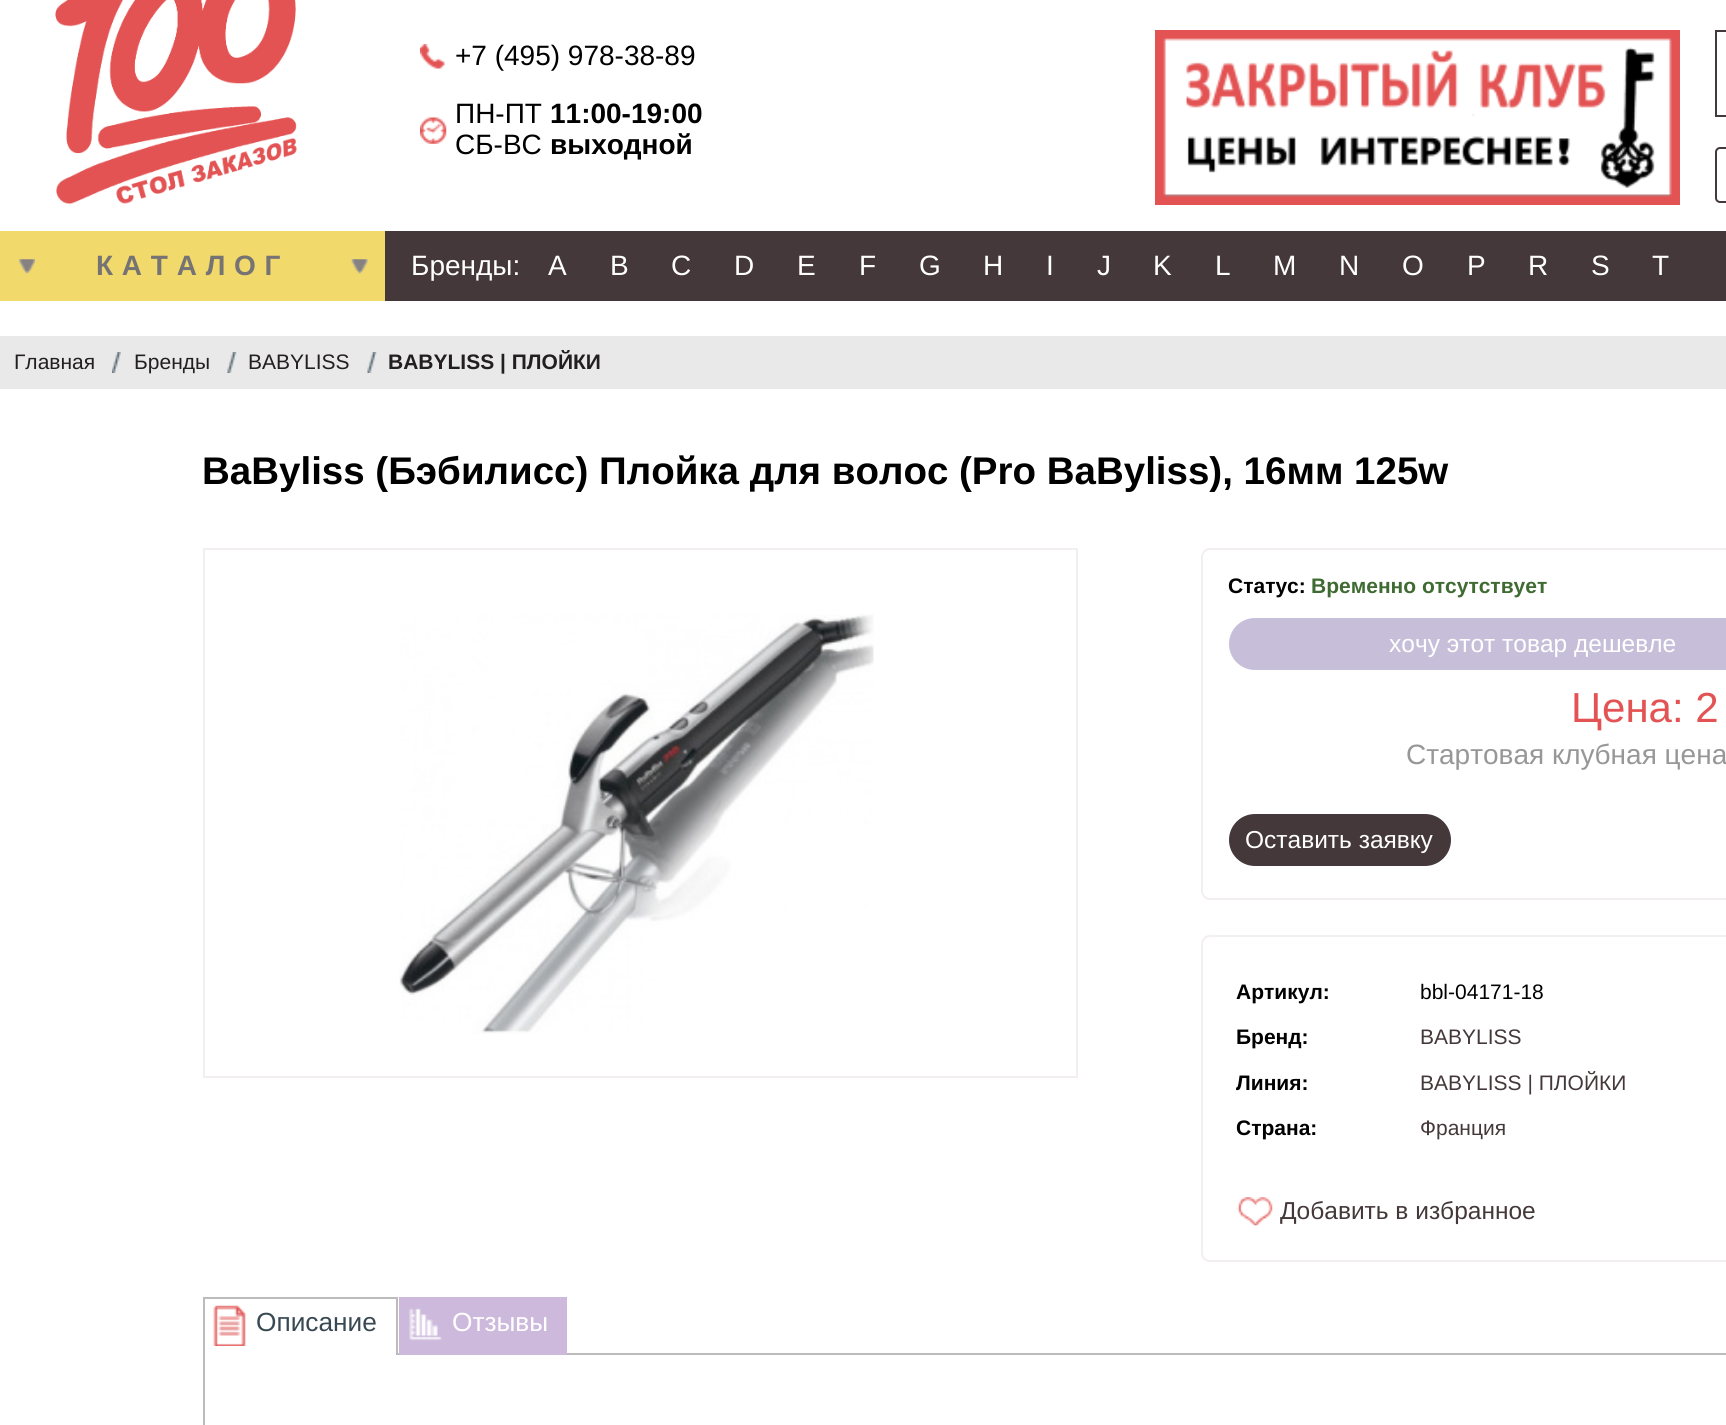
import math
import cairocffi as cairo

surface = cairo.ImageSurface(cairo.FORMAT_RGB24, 1726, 1425)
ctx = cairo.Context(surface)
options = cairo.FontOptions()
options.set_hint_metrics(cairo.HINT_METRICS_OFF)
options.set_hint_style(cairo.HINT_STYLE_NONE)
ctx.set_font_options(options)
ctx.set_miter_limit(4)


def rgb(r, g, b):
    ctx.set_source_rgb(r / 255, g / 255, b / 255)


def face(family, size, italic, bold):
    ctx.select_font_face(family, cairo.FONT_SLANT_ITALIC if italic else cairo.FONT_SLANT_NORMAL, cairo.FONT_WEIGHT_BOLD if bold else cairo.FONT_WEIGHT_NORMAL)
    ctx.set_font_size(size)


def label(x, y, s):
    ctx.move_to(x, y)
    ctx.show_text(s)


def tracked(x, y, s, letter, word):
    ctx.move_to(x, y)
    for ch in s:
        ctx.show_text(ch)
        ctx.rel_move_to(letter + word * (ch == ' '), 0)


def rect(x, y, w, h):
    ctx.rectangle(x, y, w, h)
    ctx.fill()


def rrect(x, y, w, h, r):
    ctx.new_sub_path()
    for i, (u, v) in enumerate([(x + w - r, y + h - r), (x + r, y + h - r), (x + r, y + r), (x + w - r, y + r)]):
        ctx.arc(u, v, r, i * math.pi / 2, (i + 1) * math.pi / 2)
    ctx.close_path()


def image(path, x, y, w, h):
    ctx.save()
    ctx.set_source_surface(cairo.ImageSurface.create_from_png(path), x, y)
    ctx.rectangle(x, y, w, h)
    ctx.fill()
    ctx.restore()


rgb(255, 255, 255)
ctx.paint()
image('image0.png', 55, 0, 242, 205)
image('image1.png', 420, 44, 25, 25)
face('Liberation Sans', 28, 0, 0)
rgb(0, 0, 0)
label(455, 65, '+7 (495) 978-38-89')
image('image2.png', 420, 117, 27, 27)
label(455, 123, 'ПН-ПТ')
face('Liberation Sans', 28, 0, 1)
label(550, 123, '11:00-19:00')
face('Liberation Sans', 28, 0, 0)
label(455, 154, 'СБ-ВС')
face('Liberation Sans', 28, 0, 1)
label(550, 154, 'выходной')
image('image3.png', 1155, 30, 525, 175)
ctx.rectangle(1716, 31, 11, 85)
rgb(68, 56, 58)
ctx.stroke()
rrect(1716, 148, 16, 54, 4)
ctx.stroke()
rgb(242, 217, 107)
rect(0, 231, 385, 70)
image('image4.png', 19, 259, 16, 15)
rgb(117, 115, 115)
tracked(96, 275, 'КАТАЛОГ', 8.75, 0)
image('image5.png', 351, 259, 17, 15)
rgb(68, 56, 58)
rect(385, 231, 1341, 70)
face('Liberation Sans', 28, 0, 0)
rgb(255, 255, 255)
label(411, 275, 'Бренды:')
label(548, 275, 'A')
label(610, 275, 'B')
label(671, 275, 'C')
label(734, 275, 'D')
label(797, 275, 'E')
label(859, 275, 'F')
label(919, 275, 'G')
label(983, 275, 'H')
label(1046, 275, 'I')
label(1097, 275, 'J')
label(1153, 275, 'K')
label(1215, 275, 'L')
label(1273, 275, 'M')
label(1339, 275, 'N')
label(1402, 275, 'O')
label(1467, 275, 'P')
label(1528, 275, 'R')
label(1591, 275, 'S')
label(1652, 275, 'T')
rgb(233, 233, 233)
rect(0, 336, 1726, 53)
face('Liberation Sans', 21, 0, 0)
rgb(35, 31, 32)
label(14, 369, 'Главная')
image('image6.png', 112, 352, 9, 21)
label(134, 369, 'Бренды')
image('image7.png', 227, 352, 10, 21)
label(248, 369, 'BABYLISS')
image('image8.png', 367, 352, 10, 21)
face('Liberation Sans', 21, 0, 1)
label(388, 369, 'BABYLISS | ПЛОЙКИ')
face('Liberation Sans', 38.5, 0, 1)
rgb(0, 0, 0)
label(202, 484, 'BaByliss (Бэбилисс) Плойка для волос (Pro BaByliss), 16мм 125w')
ctx.rectangle(204, 549, 873, 528)
rgb(243, 239, 240)
ctx.stroke()
image('image9.png', 399, 614, 475, 420)
rrect(1202, 549, 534, 350, 8)
ctx.stroke()
face('Liberation Sans', 21, 0, 1)
rgb(0, 0, 0)
label(1228, 593, 'Статус:')
rgb(63, 107, 51)
label(1311, 593, 'Временно отсутствует')
rgb(199, 191, 217)
rrect(1229, 618, 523, 52, 26)
ctx.fill()
face('Liberation Sans', 24.5, 0, 0)
rgb(255, 255, 255)
label(1389, 652, 'хочу этот товар дешевле')
face('Liberation Sans', 42, 0, 0)
rgb(227, 83, 83)
label(1571, 722, 'Цена: 2')
face('Liberation Sans', 28, 0, 0)
rgb(151, 151, 151)
label(1406, 764, 'Стартовая клубная цена')
rgb(68, 56, 58)
rrect(1229, 814, 222, 52, 26)
ctx.fill()
face('Liberation Sans', 24.5, 0, 0)
rgb(255, 255, 255)
label(1245, 848, 'Оставить заявку')
rrect(1202, 936, 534, 325, 8)
rgb(243, 239, 240)
ctx.stroke()
face('Liberation Sans', 21, 0, 1)
rgb(0, 0, 0)
label(1236, 999, 'Артикул:')
face('Liberation Sans', 21, 0, 0)
label(1420, 999, 'bbl-04171-18')
face('Liberation Sans', 21, 0, 1)
label(1236, 1044, 'Бренд:')
face('Liberation Sans', 21, 0, 0)
rgb(68, 56, 58)
label(1420, 1044, 'BABYLISS')
face('Liberation Sans', 21, 0, 1)
rgb(0, 0, 0)
label(1236, 1090, 'Линия:')
face('Liberation Sans', 21, 0, 0)
rgb(68, 56, 58)
label(1420, 1090, 'BABYLISS | ПЛОЙКИ')
face('Liberation Sans', 21, 0, 1)
rgb(0, 0, 0)
label(1236, 1135, 'Страна:')
face('Liberation Sans', 21, 0, 0)
rgb(68, 56, 58)
label(1420, 1135, 'Франция')
image('image10.png', 1237, 1197, 36, 29)
face('Liberation Sans', 24.5, 0, 0)
label(1280, 1219, 'Добавить в избранное')
ctx.rectangle(204, 1354, 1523, 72)
rgb(188, 188, 188)
ctx.stroke()
rgb(255, 255, 255)
rect(205, 1353, 191, 2)
rgb(188, 188, 188)
rect(203, 1297, 194, 2)
rect(396, 1297, 2, 58)
rect(203, 1297, 2, 58)
image('image11.png', 213, 1305, 33, 41)
face('Liberation Sans', 26.25, 0, 0)
rgb(56, 73, 83)
label(256, 1331, 'Описание')
rgb(205, 185, 220)
rect(399, 1297, 168, 58)
image('image12.png', 409, 1308, 33, 33)
rgb(255, 255, 255)
label(452, 1331, 'Отзывы')
surface.write_to_png('render.png')
